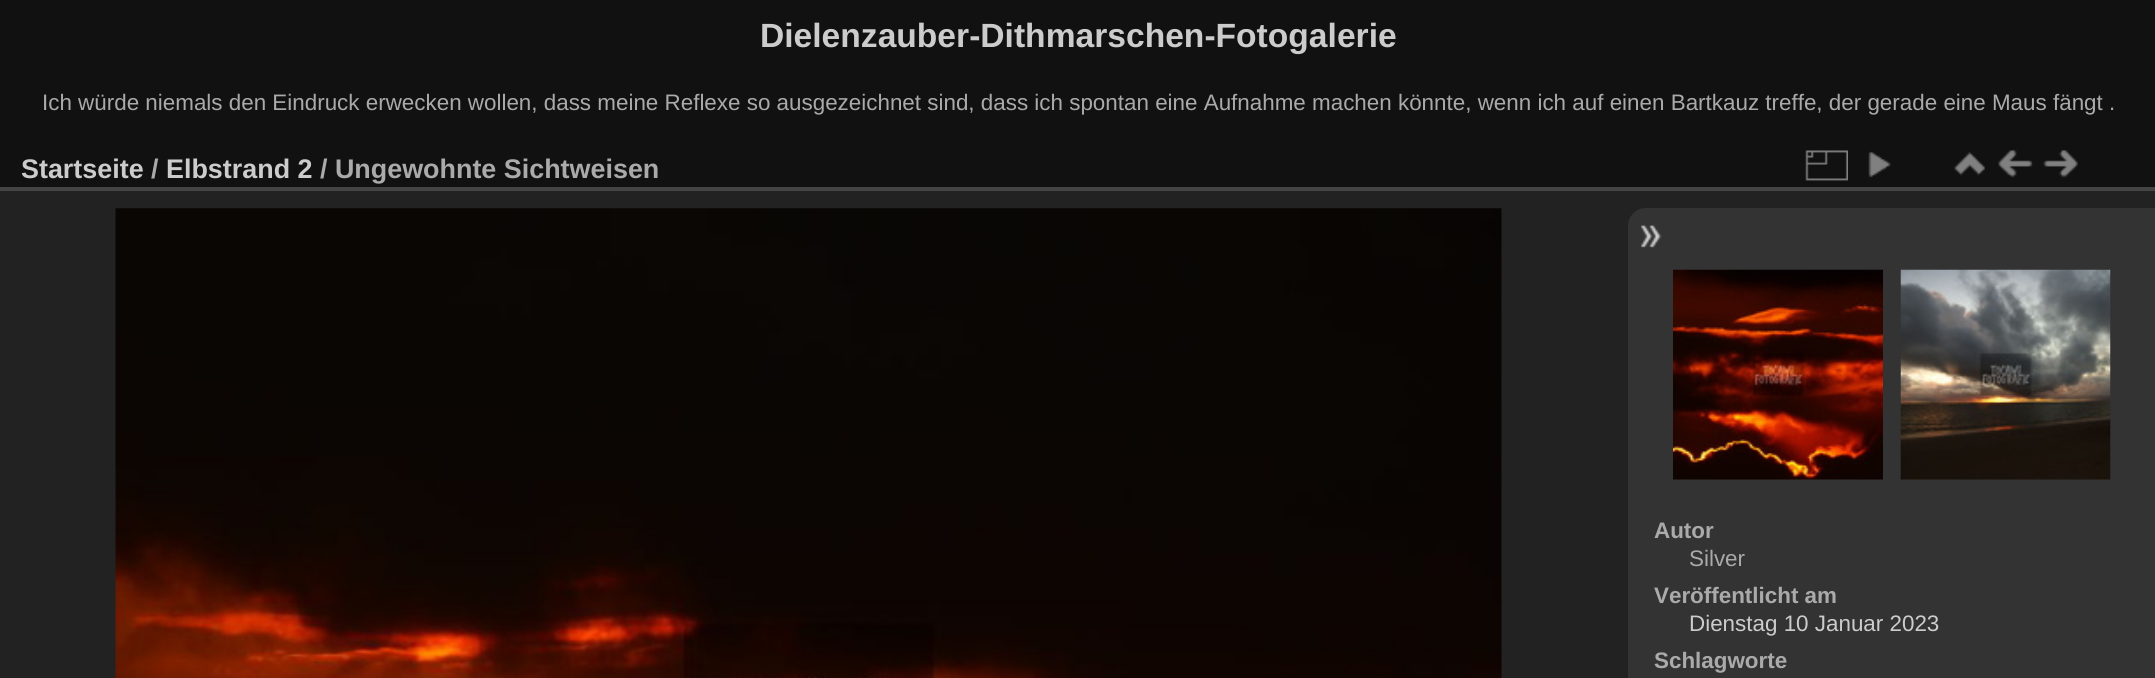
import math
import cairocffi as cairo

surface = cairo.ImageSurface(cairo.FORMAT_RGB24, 2155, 678)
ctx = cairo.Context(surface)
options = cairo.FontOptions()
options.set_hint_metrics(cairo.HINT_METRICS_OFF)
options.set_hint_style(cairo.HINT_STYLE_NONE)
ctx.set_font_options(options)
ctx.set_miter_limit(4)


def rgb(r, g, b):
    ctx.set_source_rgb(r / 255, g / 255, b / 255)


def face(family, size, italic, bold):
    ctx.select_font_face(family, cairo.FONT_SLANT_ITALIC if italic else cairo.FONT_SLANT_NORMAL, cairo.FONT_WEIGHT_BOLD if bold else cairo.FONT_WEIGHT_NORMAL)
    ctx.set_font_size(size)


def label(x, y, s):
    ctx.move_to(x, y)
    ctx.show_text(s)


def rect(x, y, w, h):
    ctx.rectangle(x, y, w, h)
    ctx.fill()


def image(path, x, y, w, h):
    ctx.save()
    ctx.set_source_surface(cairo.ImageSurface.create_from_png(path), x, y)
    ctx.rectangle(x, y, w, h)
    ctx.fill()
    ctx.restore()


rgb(17, 17, 17)
ctx.paint()
face('Liberation Sans', 33.6, 0, 1)
rgb(204, 204, 204)
label(760, 47, 'Dielenzauber-Dithmarschen-Fotogalerie')
face('Liberation Sans', 22.4, 0, 0)
rgb(170, 170, 170)
label(42, 110, 'Ich würde niemals den Eindruck erwecken wollen, dass meine Reflexe so ausgezeichnet sind, dass ich spontan eine Aufnahme machen könnte, wenn ich auf einen Bartkauz treffe, der gerade eine Maus fängt .')
rgb(34, 34, 34)
rect(0, 191, 2155, 487)
rgb(68, 68, 68)
rect(0, 187, 2155, 4)
face('Liberation Sans', 26.9, 0, 1)
rgb(204, 204, 204)
label(21, 178, 'Startseite')
rgb(170, 170, 170)
label(151, 178, '/')
rgb(204, 204, 204)
label(166, 178, 'Elbstrand 2')
rgb(170, 170, 170)
label(320, 178, '/ Ungewohnte Sichtweisen')
image('image0.png', 1805, 150, 43, 31)
image('image1.png', 1868, 151, 23, 27)
image('image2.png', 1954, 152, 31, 24)
image('image3.png', 1998, 150, 35, 28)
image('image4.png', 2043, 150, 35, 28)
image('image5.png', 115, 208, 1387, 470)
rgb(51, 51, 51)
ctx.new_path()
ctx.move_to(1646, 208)
ctx.line_to(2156, 208)
ctx.line_to(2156, 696)
ctx.line_to(1646, 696)
ctx.curve_to(1636, 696, 1628, 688, 1628, 678)
ctx.line_to(1628, 226)
ctx.curve_to(1628, 216, 1636, 208, 1646, 208)
ctx.close_path()
ctx.fill()
image('image6.png', 1640, 225, 22, 23)
image('image7.png', 1673, 269, 210, 211)
image('image8.png', 1900, 269, 211, 211)
face('Liberation Sans', 22.4, 0, 1)
rgb(170, 170, 170)
label(1654, 538, 'Autor')
face('Liberation Sans', 22.4, 0, 0)
label(1689, 566, 'Silver')
face('Liberation Sans', 22.4, 0, 1)
label(1654, 603, 'Veröffentlicht am')
face('Liberation Sans', 22.4, 0, 0)
rgb(204, 204, 204)
label(1689, 631, 'Dienstag 10 Januar 2023')
face('Liberation Sans', 22.4, 0, 1)
rgb(170, 170, 170)
label(1654, 668, 'Schlagworte')
surface.write_to_png('render.png')
